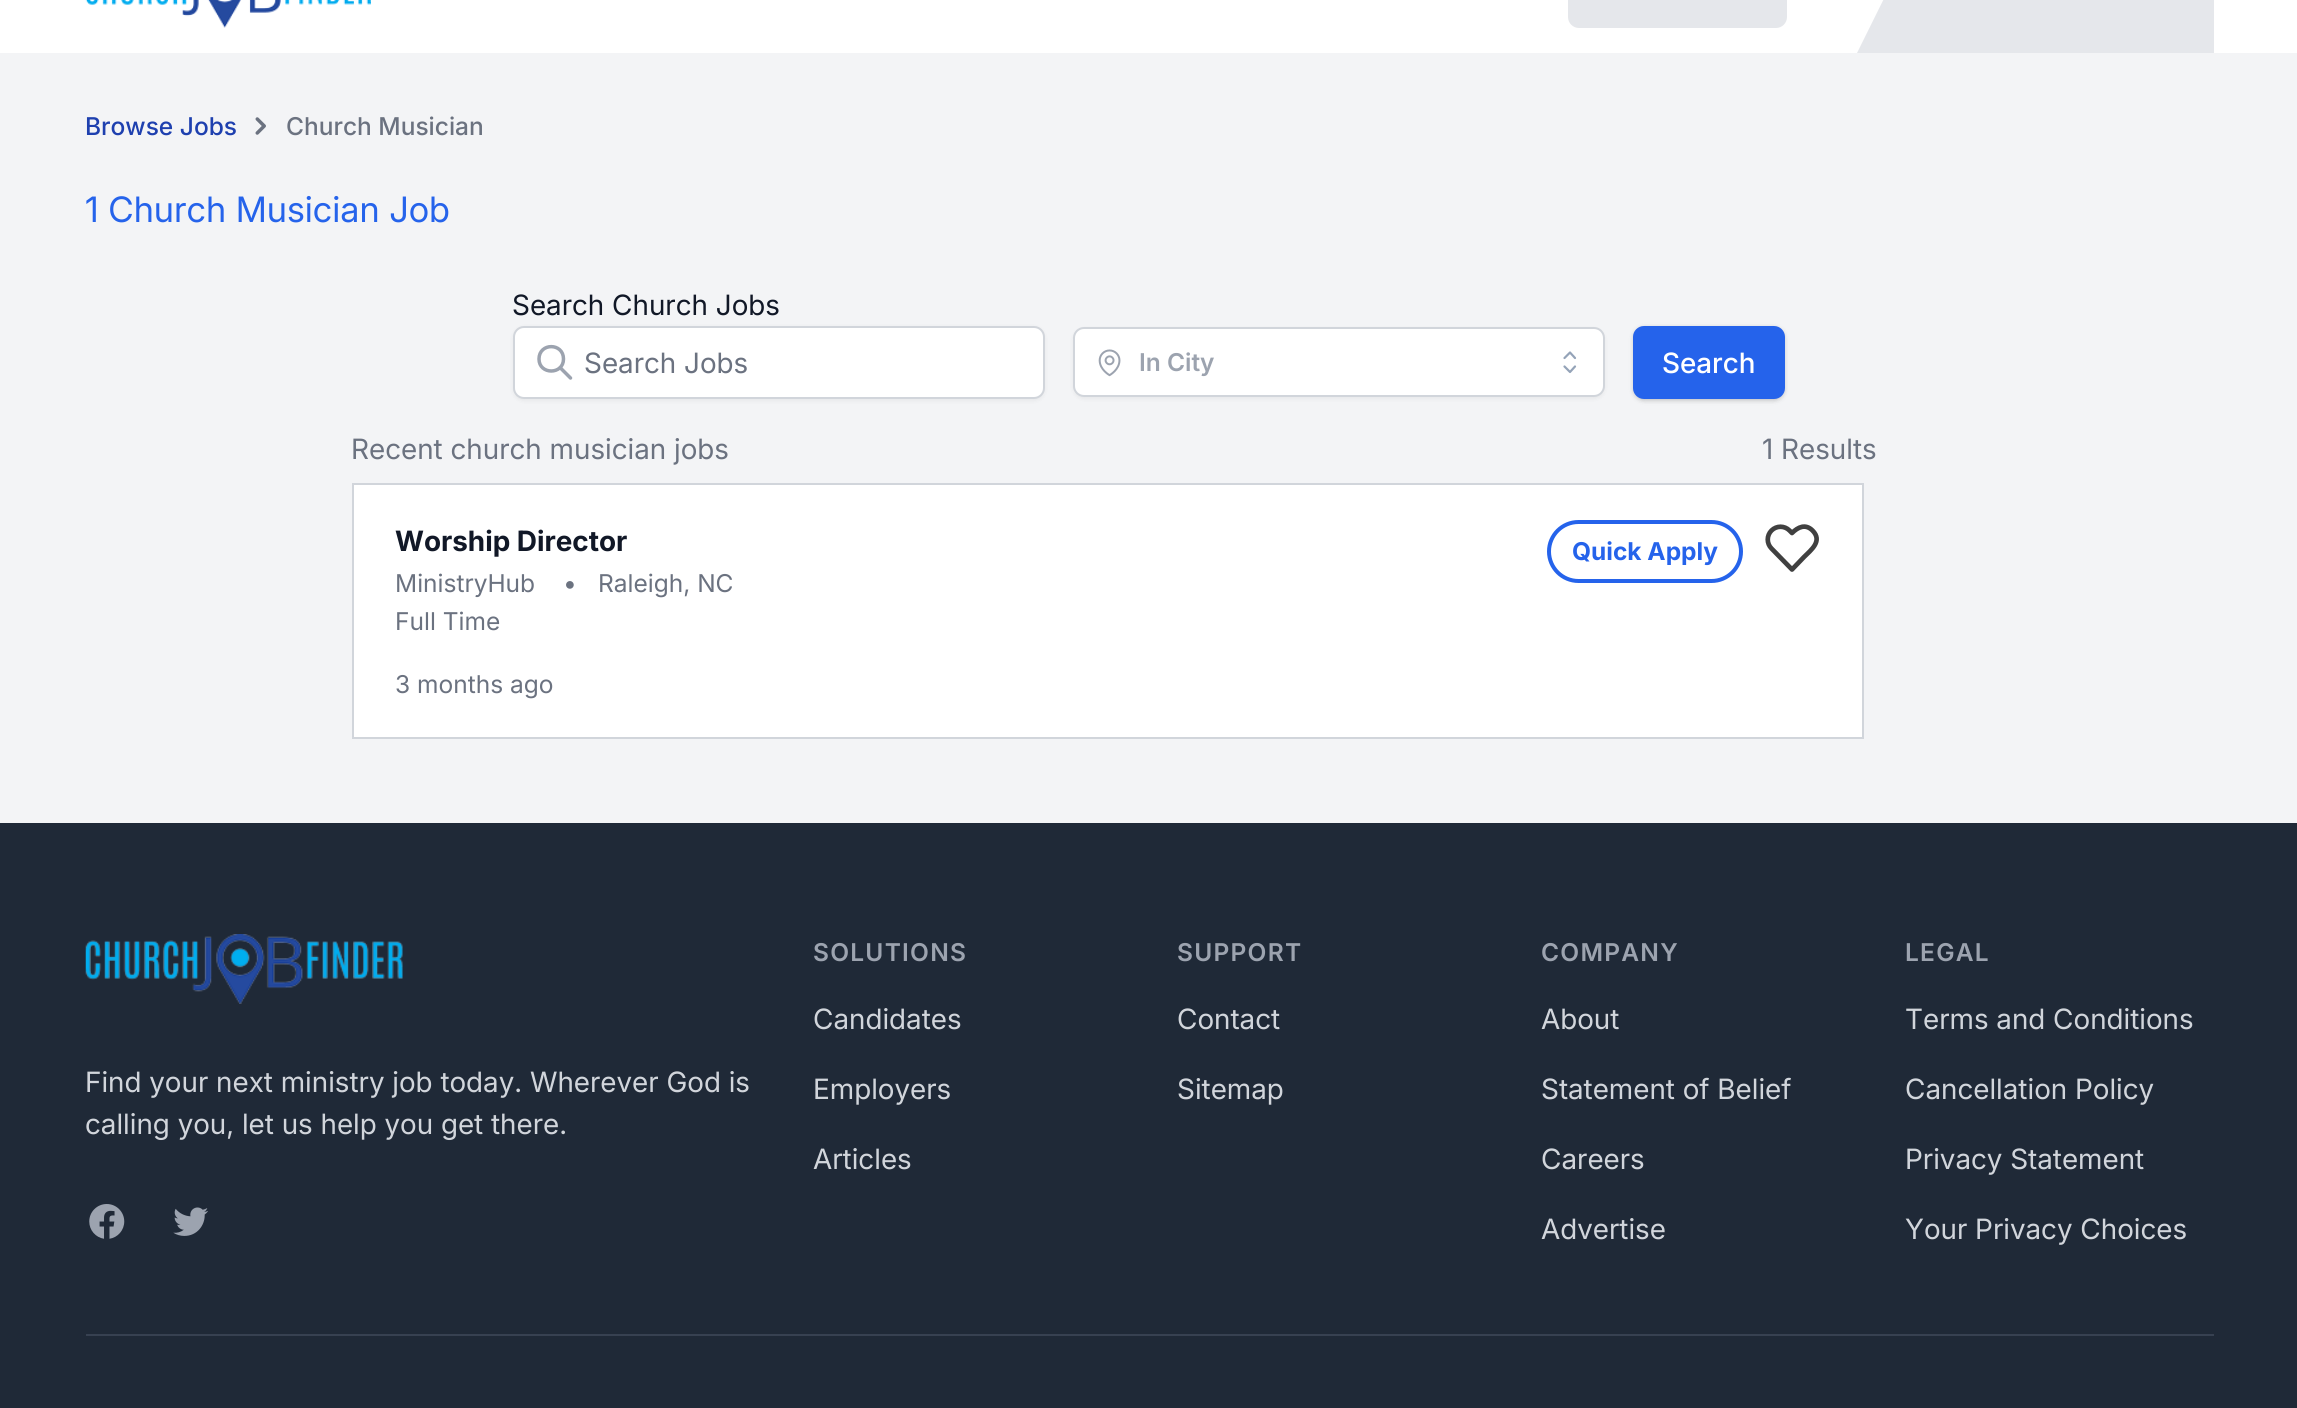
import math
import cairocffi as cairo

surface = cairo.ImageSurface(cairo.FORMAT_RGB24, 2297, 1408)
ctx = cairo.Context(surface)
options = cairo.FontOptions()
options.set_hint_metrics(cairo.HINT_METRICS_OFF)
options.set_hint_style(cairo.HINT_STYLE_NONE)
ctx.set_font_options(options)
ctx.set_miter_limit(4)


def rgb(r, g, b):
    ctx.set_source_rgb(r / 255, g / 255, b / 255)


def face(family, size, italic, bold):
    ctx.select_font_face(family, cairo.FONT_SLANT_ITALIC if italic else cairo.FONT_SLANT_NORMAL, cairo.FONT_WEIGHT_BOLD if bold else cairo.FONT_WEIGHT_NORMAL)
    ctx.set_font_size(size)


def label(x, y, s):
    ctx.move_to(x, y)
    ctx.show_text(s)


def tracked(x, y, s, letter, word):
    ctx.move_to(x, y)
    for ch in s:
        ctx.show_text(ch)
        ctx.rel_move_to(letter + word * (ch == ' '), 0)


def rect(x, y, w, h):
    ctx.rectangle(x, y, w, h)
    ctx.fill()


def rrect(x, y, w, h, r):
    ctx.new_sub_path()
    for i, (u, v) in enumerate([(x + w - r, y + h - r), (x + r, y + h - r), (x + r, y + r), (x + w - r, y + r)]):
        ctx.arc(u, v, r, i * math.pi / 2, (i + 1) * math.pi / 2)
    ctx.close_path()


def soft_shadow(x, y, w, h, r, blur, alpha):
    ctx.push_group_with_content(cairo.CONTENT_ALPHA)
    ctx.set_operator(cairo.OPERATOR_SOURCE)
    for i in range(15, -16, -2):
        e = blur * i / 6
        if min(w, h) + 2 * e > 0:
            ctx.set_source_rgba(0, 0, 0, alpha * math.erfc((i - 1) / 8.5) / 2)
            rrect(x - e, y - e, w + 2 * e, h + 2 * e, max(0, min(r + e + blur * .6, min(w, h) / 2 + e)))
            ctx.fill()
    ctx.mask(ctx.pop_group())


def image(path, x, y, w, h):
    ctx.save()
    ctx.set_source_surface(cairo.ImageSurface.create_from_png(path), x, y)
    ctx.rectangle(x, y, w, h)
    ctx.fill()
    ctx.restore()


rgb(255, 255, 255)
ctx.paint()
image('image0.png', 85, 0, 286, 28)
rgb(229, 231, 235)
rrect(1568, -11, 219, 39, 11)
ctx.fill()
rect(1857, 0, 357, 53)
rgb(255, 255, 255)
ctx.new_path()
ctx.move_to(1857, -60)
ctx.line_to(1857, 53)
ctx.line_to(1913, -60)
ctx.close_path()
ctx.fill()
rgb(243, 244, 246)
rect(0, 53, 2297, 770)
face('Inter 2 Medium', 24.5, 0, 0)
rgb(30, 64, 175)
label(85, 135, 'Browse Jobs')
image('image1.png', 255, 117, 11, 18)
rgb(107, 114, 128)
label(286, 135, 'Church Musician')
face('Inter', 35, 0, 0)
rgb(37, 99, 235)
label(85, 222, '1 Church Musician Job')
face('Inter 2', 28, 0, 0)
rgb(17, 24, 39)
label(512, 315, 'Search Church Jobs')
rgb(0, 0, 0)
soft_shadow(513, 327, 532, 74, 11, 2, 0.05)
rgb(255, 255, 255)
rrect(514, 327, 530, 71, 10)
ctx.fill_preserve()
rgb(209, 213, 219)
ctx.stroke()
ctx.new_path()
ctx.move_to(570.5, 378)
ctx.line_to(560, 367.5)
ctx.move_to(563.5, 359)
ctx.curve_to(563.5, 375, 539, 375, 539, 359)
ctx.curve_to(539, 342.5, 563.5, 342.5, 563.5, 359)
ctx.close_path()
rgb(156, 163, 175)
ctx.set_line_width(3.5)
ctx.set_line_cap(cairo.LINE_CAP_ROUND)
ctx.set_line_join(cairo.LINE_JOIN_ROUND)
ctx.stroke()
rgb(107, 114, 128)
label(584, 373, 'Search Jobs')
rgb(0, 0, 0)
soft_shadow(1073, 329, 532, 70, 11, 2, 0.05)
rgb(255, 255, 255)
rrect(1074, 328, 530, 68, 10)
ctx.fill_preserve()
rgb(209, 213, 219)
ctx.set_line_width(2)
ctx.set_line_cap(cairo.LINE_CAP_BUTT)
ctx.set_line_join(cairo.LINE_JOIN_MITER)
ctx.stroke()
image('image2.png', 1098, 349, 23, 28)
face('Inter SemiBold', 24.5, 0, 0)
rgb(156, 163, 175)
label(1139, 371, 'In City')
ctx.new_path()
ctx.move_to(1564.5, 366.5)
ctx.line_to(1570, 372)
ctx.line_to(1575, 366.5)
ctx.move_to(1564.5, 358)
ctx.line_to(1570, 352.5)
ctx.line_to(1575, 358)
rgb(148, 163, 184)
ctx.set_line_width(2.2)
ctx.set_line_cap(cairo.LINE_CAP_ROUND)
ctx.set_line_join(cairo.LINE_JOIN_ROUND)
ctx.stroke()
rgb(0, 0, 0)
soft_shadow(1635, 329, 148, 70, 9, 2, 0.1)
soft_shadow(1633, 327, 152, 74, 11, 2.5, 0.1)
soft_shadow(1633, 327, 152, 74, 11, 2, 0.05)
rgb(37, 99, 235)
rrect(1633, 326, 152, 73, 11)
ctx.fill()
face('Inter Medium', 28, 0, 0)
rgb(255, 255, 255)
label(1662, 373, 'Search')
face('Inter 2', 28, 0, 0)
rgb(107, 114, 128)
label(351, 459, 'Recent church musician jobs')
label(1762, 459, '1 Results')
rgb(255, 255, 255)
ctx.rectangle(353, 484, 1510, 254)
ctx.fill_preserve()
rgb(209, 213, 219)
ctx.set_line_width(2)
ctx.set_line_cap(cairo.LINE_CAP_BUTT)
ctx.set_line_join(cairo.LINE_JOIN_MITER)
ctx.stroke()
face('Inter', 28, 0, 1)
rgb(17, 24, 39)
label(395, 551, 'Worship Director')
face('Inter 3', 24.5, 0, 0)
rgb(107, 114, 128)
label(395, 592, 'MinistryHub')
label(563, 592, '•')
label(598, 592, 'Raleigh, NC')
label(395, 630, 'Full Time')
label(395, 693, '3 months ago')
rrect(1549, 522, 192, 59, 29.5)
rgb(37, 99, 235)
ctx.set_line_width(4)
ctx.stroke()
face('Inter 2', 24.5, 0, 1)
label(1572, 560, 'Quick Apply')
ctx.new_path()
ctx.move_to(1812.5, 530.5)
ctx.curve_to(1805.5, 523.5, 1798, 527, 1792, 533)
ctx.line_to(1789.5, 530.5)
ctx.curve_to(1784.5, 525.5, 1776.5, 525.5, 1771.5, 530.5)
ctx.curve_to(1766.5, 535.5, 1766.5, 543.5, 1771.5, 548.5)
ctx.line_to(1792, 569.5)
ctx.line_to(1804, 557)
ctx.curve_to(1811, 550, 1823, 541, 1812.5, 530.5)
ctx.close_path()
rgb(64, 64, 64)
ctx.set_line_width(4.7)
ctx.set_line_cap(cairo.LINE_CAP_ROUND)
ctx.set_line_join(cairo.LINE_JOIN_ROUND)
ctx.stroke()
rgb(31, 41, 55)
rect(0, 823, 2297, 585)
image('image3.png', 85, 934, 318, 70)
face('Inter 2', 28, 0, 0)
rgb(209, 213, 219)
label(85, 1092, 'Find your next ministry job today. Wherever God is')
label(85, 1134, 'calling you, let us help you get there.')
image('image4.png', 89, 1204, 36, 35)
image('image5.png', 173, 1207, 35, 29)
face('Inter SemiBold', 24.5, 0, 0)
rgb(156, 163, 175)
tracked(813, 961, 'SOLUTIONS', 1.25, 0)
face('Inter 2', 28, 0, 0)
rgb(209, 213, 219)
label(813, 1029, 'Candidates')
label(813, 1099, 'Employers')
label(813, 1169, 'Articles')
face('Inter SemiBold', 24.5, 0, 0)
rgb(156, 163, 175)
tracked(1177, 961, 'SUPPORT', 1.25, 0)
face('Inter 2', 28, 0, 0)
rgb(209, 213, 219)
label(1177, 1029, 'Contact')
label(1177, 1099, 'Sitemap')
face('Inter SemiBold', 24.5, 0, 0)
rgb(156, 163, 175)
tracked(1541, 961, 'COMPANY', 1.25, 0)
face('Inter 2', 28, 0, 0)
rgb(209, 213, 219)
label(1541, 1029, 'About')
label(1541, 1099, 'Statement of Belief')
label(1541, 1169, 'Careers')
label(1541, 1239, 'Advertise')
face('Inter SemiBold', 24.5, 0, 0)
rgb(156, 163, 175)
tracked(1905, 961, 'LEGAL', 1.25, 0)
face('Inter 2', 28, 0, 0)
rgb(209, 213, 219)
label(1905, 1029, 'Terms and Conditions')
label(1905, 1099, 'Cancellation Policy')
label(1905, 1169, 'Privacy Statement')
label(1905, 1239, 'Your Privacy Choices')
rgb(55, 65, 81)
rect(86, 1334, 2128, 2)
surface.write_to_png('render.png')
